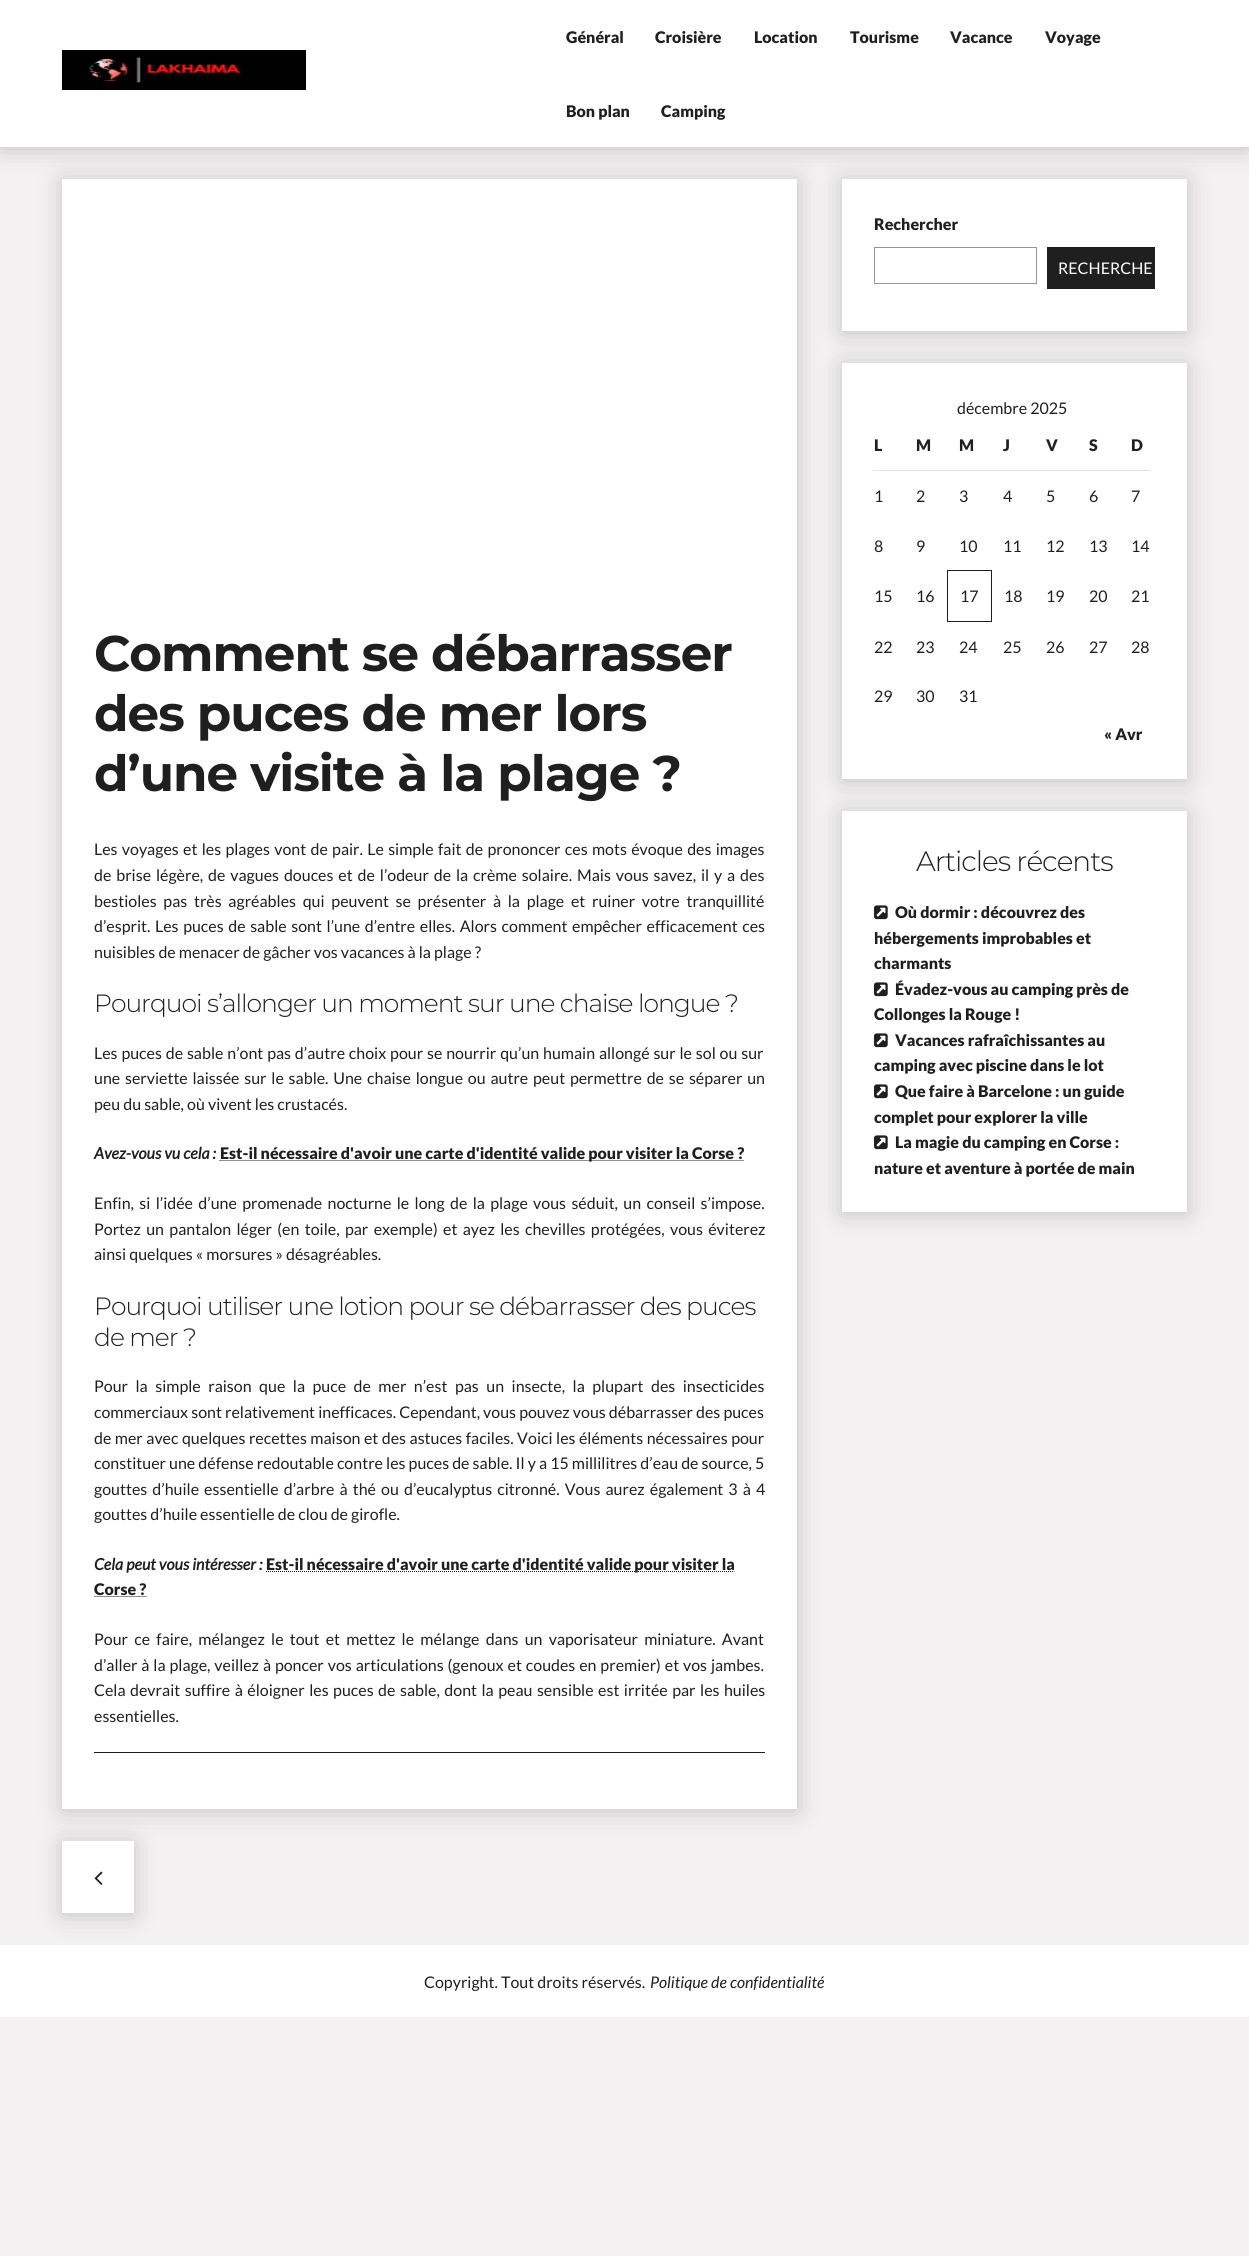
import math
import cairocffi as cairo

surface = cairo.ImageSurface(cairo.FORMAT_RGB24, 1249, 2256)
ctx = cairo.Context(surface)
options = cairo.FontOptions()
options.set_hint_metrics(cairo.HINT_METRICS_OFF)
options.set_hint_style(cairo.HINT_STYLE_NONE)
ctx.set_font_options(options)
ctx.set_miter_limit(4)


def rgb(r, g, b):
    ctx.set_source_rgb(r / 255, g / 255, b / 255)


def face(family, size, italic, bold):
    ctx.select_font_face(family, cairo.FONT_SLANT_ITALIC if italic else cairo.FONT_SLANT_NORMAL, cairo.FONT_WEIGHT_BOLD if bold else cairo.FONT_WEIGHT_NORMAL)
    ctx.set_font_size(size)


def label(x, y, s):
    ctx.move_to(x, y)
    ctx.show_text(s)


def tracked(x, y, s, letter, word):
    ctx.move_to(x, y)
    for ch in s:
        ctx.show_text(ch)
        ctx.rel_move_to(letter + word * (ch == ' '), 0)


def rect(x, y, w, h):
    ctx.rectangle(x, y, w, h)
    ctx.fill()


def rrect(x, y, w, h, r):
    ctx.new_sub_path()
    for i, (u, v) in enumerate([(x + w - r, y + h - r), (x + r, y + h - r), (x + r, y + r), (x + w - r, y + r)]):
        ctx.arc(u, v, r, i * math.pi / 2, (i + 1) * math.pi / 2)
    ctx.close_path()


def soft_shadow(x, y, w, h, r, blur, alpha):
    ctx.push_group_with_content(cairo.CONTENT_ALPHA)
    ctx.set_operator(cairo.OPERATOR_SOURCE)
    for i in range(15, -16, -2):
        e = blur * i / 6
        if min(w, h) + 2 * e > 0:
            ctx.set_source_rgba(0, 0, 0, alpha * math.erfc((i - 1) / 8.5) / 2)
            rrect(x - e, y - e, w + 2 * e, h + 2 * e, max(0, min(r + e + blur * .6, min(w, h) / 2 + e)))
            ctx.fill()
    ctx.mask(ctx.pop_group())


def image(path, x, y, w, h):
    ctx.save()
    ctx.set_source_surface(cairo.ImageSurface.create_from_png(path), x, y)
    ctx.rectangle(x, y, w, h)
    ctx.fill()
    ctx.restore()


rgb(243, 241, 242)
ctx.paint()
rgb(0, 0, 0)
soft_shadow(0, 2, 1249, 147, 0, 12, 0.2)
rgb(255, 255, 255)
rect(0, 0, 1249, 147)
image('image0.png', 62, 50, 244, 40)
face('Lato Black', 16, 0, 0)
rgb(31, 31, 31)
label(566, 43, 'Général')
label(655, 43, 'Croisière')
label(754, 43, 'Location')
label(850, 43, 'Tourisme')
label(950, 43, 'Vacance')
label(1045, 43, 'Voyage')
label(566, 117, 'Bon plan')
label(661, 117, 'Camping')
rgb(0, 0, 0)
soft_shadow(62, 181, 735, 1630, 0, 12, 0.2)
rgb(255, 255, 255)
rect(62, 179, 735, 1630)
face('Montserrat', 50, 0, 1)
rgb(31, 31, 31)
tracked(94, 671, 'Comment se débarrasser', -1, 0)
tracked(94, 731, 'des puces de mer lors', -1, 0)
tracked(94, 791, 'd’une visite à la plage ?', -1, 0)
face('Lato', 16, 0, 0)
tracked(94, 855, 'Les voyages et les plages vont de pair. Le simple fait de prononcer ces mots évoque des images', 0, 1.2)
tracked(94, 881, 'de brise légère, de vagues douces et de l’odeur de la crème solaire. Mais vous savez, il y a des', 0, 1.8)
tracked(94, 907, 'bestioles pas très agréables qui peuvent se présenter à la plage et ruiner votre tranquillité', 0, 3.6)
tracked(94, 932, 'd’esprit. Les puces de sable sont l’une d’entre elles. Alors comment empêcher efficacement ces', 0, 1.5)
label(94, 958, 'nuisibles de menacer de gâcher vos vacances à la plage ?')
face('Montserrat Light', 25, 0, 0)
tracked(94, 1012, 'Pourquoi s’allonger un moment sur une chaise longue ?', -1, 0)
face('Lato', 16, 0, 0)
tracked(94, 1059, 'Les puces de sable n’ont pas d’autre choix pour se nourrir qu’un humain allongé sur le sol ou sur', 0, 0.75)
tracked(94, 1084, 'une serviette laissée sur le sable. Une chaise longue ou autre peut permettre de se séparer un', 0, 1.7)
label(94, 1110, 'peu du sable, où vivent les crustacés.')
face('Lato', 16, 1, 1)
label(94, 1159, 'Avez-vous vu cela :')
ctx.new_path()
ctx.move_to(219.5, 1160.5)
ctx.line_to(744, 1160.5)
ctx.set_line_width(1)
ctx.set_dash([1, 1])
ctx.stroke()
face('Lato Black', 16, 0, 0)
label(220, 1159, 'Est-il nécessaire d\'avoir une carte d\'identité valide pour visiter la Corse ?')
face('Lato', 16, 0, 0)
tracked(94, 1209, 'Enfin, si l’idée d’une promenade nocturne le long de la plage vous séduit, un conseil s’impose.', 0, 2.25)
tracked(94, 1235, 'Portez un pantalon léger (en toile, par exemple) et ayez les chevilles protégées, vous éviterez', 0, 2.25)
label(94, 1260, 'ainsi quelques « morsures » désagréables.')
face('Montserrat Light', 25, 0, 0)
tracked(94, 1315, 'Pourquoi utiliser une lotion pour se débarrasser des puces', -1, 0)
tracked(94, 1346, 'de mer ?', -1, 0)
face('Lato', 16, 0, 0)
tracked(94, 1392, 'Pour la simple raison que la puce de mer n’est pas un insecte, la plupart des insecticides', 0, 4.4)
label(94, 1418, 'commerciaux sont relativement inefficaces. Cependant, vous pouvez vous débarrasser des puces')
tracked(94, 1444, 'de mer avec quelques recettes maison et des astuces faciles. Voici les éléments nécessaires pour', 0, 0.4)
label(94, 1469, 'constituer une défense redoutable contre les puces de sable. Il y a 15 millilitres d’eau de source, 5')
tracked(94, 1495, 'gouttes d’huile essentielle d’arbre à thé ou d’eucalyptus citronné. Vous aurez également 3 à 4', 0, 2)
label(94, 1520, 'gouttes d’huile essentielle de clou de girofle.')
face('Lato', 16, 1, 1)
label(94, 1570, 'Cela peut vous intéresser :')
ctx.new_path()
ctx.move_to(266, 1571.5)
ctx.line_to(734.5, 1571.5)
ctx.stroke()
face('Lato Black', 16, 0, 0)
label(266, 1570, 'Est-il nécessaire d\'avoir une carte d\'identité valide pour visiter la')
label(94, 1595, 'Corse ?')
ctx.new_path()
ctx.move_to(94.5, 1596.5)
ctx.line_to(147, 1596.5)
ctx.stroke()
face('Lato', 16, 0, 0)
tracked(94, 1645, 'Pour ce faire, mélangez le tout et mettez le mélange dans un vaporisateur miniature. Avant', 0, 3.1)
tracked(94, 1671, 'd’aller à la plage, veillez à poncer vos articulations (genoux et coudes en premier) et vos jambes.', 0, 0.8)
tracked(94, 1696, 'Cela devrait suffire à éloigner les puces de sable, dont la peau sensible est irritée par les huiles', 0, 1.4)
label(94, 1722, 'essentielles.')
rect(94, 1752, 671, 1)
rgb(255, 255, 255)
rect(0, 1945, 1249, 72)
rgb(0, 0, 0)
soft_shadow(62, 1843, 72, 72, 0, 12, 0.2)
rgb(255, 255, 255)
rect(62, 1841, 72, 72)
image('image1.png', 94, 1871, 9, 14)
rgb(0, 0, 0)
soft_shadow(842, 181, 345, 152, 0, 12, 0.2)
rgb(255, 255, 255)
rect(842, 179, 345, 152)
face('Lato Black', 16, 0, 0)
rgb(31, 31, 31)
label(874, 230, 'Rechercher')
ctx.rectangle(874.5, 247.5, 162, 36)
rgb(148, 148, 148)
ctx.set_dash([])
ctx.stroke()
rgb(31, 31, 31)
rect(1047, 247, 108, 42)
face('Lato', 16, 0, 0)
rgb(255, 255, 255)
label(1058, 274, 'RECHERCHE')
rgb(0, 0, 0)
soft_shadow(842, 365, 345, 416, 0, 12, 0.2)
rgb(255, 255, 255)
rect(842, 363, 345, 416)
rgb(31, 31, 31)
label(957, 414, 'décembre 2025')
face('Lato Black', 16, 0, 0)
label(874, 451, 'L')
label(916, 451, 'M')
label(959, 451, 'M')
label(1003, 451, 'J')
label(1046, 451, 'V')
label(1089, 451, 'S')
rgb(225, 225, 225)
rect(873, 470, 277, 1)
rgb(31, 31, 31)
label(1131, 451, 'D')
face('Lato', 16, 0, 0)
label(874, 502, '1')
label(916, 502, '2')
label(959, 502, '3')
label(1003, 502, '4')
label(1046, 502, '5')
label(1089, 502, '6')
label(1131, 502, '7')
label(874, 552, '8')
label(916, 552, '9')
label(959, 552, '10')
label(1003, 552, '11')
label(1046, 552, '12')
label(1089, 552, '13')
label(1131, 552, '14')
label(874, 602, '15')
label(916, 602, '16')
rect(947, 570, 45, 1)
rect(991, 570, 1, 52)
rect(947, 621, 45, 1)
rect(947, 570, 1, 52)
label(960, 602, '17')
label(1004, 602, '18')
label(1046, 602, '19')
label(1089, 602, '20')
label(1131, 602, '21')
label(874, 653, '22')
label(916, 653, '23')
label(959, 653, '24')
label(1003, 653, '25')
label(1046, 653, '26')
label(1089, 653, '27')
label(1131, 653, '28')
label(874, 702, '29')
label(916, 702, '30')
label(959, 702, '31')
face('Lato Black', 16, 0, 0)
label(1104, 740, '« Avr')
rgb(0, 0, 0)
soft_shadow(842, 813, 345, 401, 0, 12, 0.2)
rgb(255, 255, 255)
rect(842, 811, 345, 401)
face('Montserrat Light', 28, 0, 0)
rgb(31, 31, 31)
tracked(916, 871, 'Articles récents', -1, 0)
image('image2.png', 874, 905, 14, 15)
face('Lato Black', 16, 0, 0)
label(895, 918, 'Où dormir : découvrez des')
label(874, 944, 'hébergements improbables et')
label(874, 969, 'charmants')
image('image2.png', 874, 982, 14, 15)
label(895, 995, 'Évadez-vous au camping près de')
label(874, 1020, 'Collonges la Rouge !')
image('image2.png', 874, 1033, 14, 15)
label(895, 1046, 'Vacances rafraîchissantes au')
label(874, 1071, 'camping avec piscine dans le lot')
image('image2.png', 874, 1084, 14, 15)
label(895, 1097, 'Que faire à Barcelone : un guide')
label(874, 1123, 'complet pour explorer la ville')
image('image2.png', 874, 1135, 14, 15)
label(895, 1148, 'La magie du camping en Corse :')
label(874, 1174, 'nature et aventure à portée de main')
face('Lato', 16, 0, 0)
label(424, 1988, 'Copyright. Tout droits réservés.')
face('Lato', 16, 1, 0)
label(650, 1988, 'Politique de confidentialité')
surface.write_to_png('render.png')
